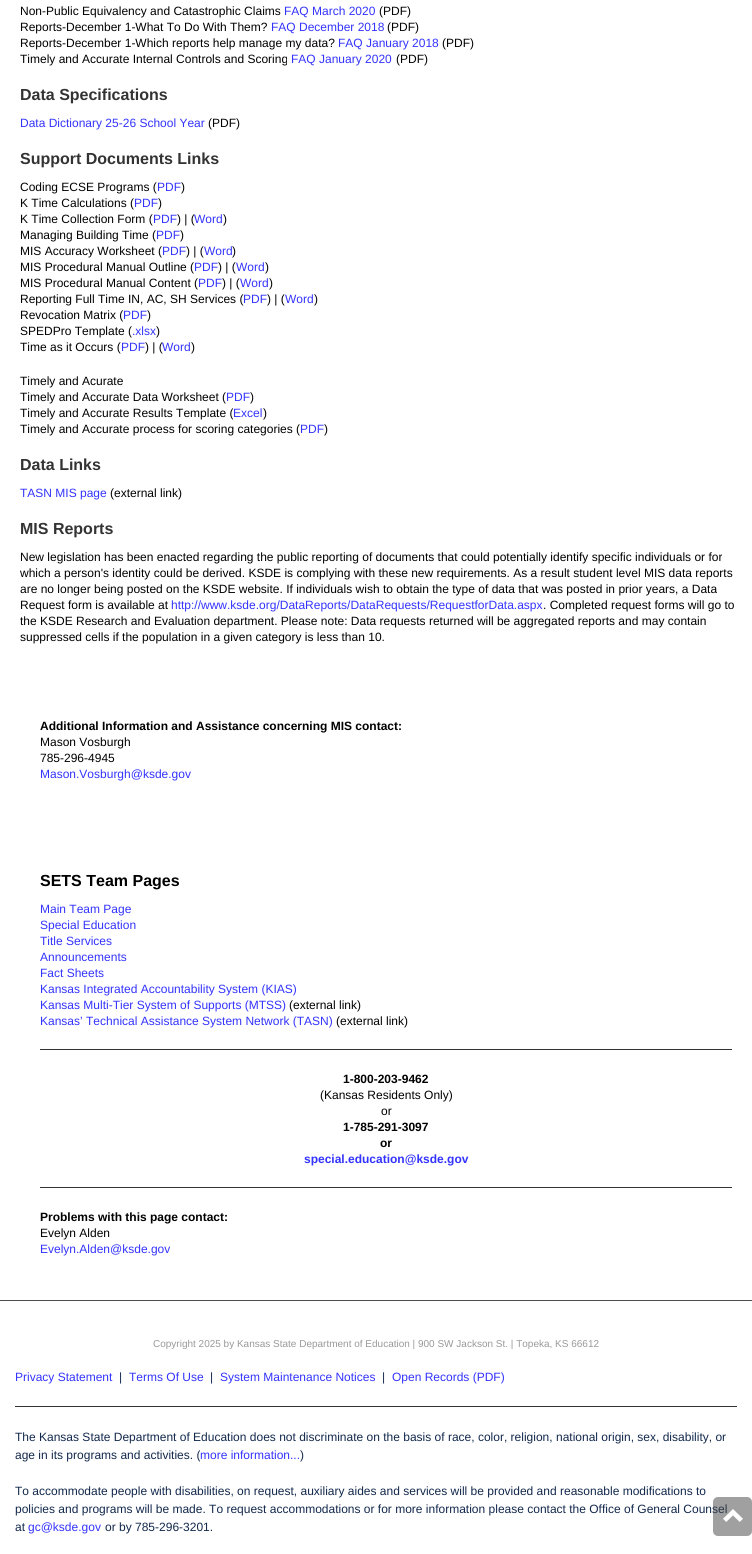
import math
import cairocffi as cairo

surface = cairo.ImageSurface(cairo.FORMAT_RGB24, 752, 1554)
ctx = cairo.Context(surface)
options = cairo.FontOptions()
options.set_hint_metrics(cairo.HINT_METRICS_OFF)
options.set_hint_style(cairo.HINT_STYLE_NONE)
ctx.set_font_options(options)
ctx.set_miter_limit(4)


def rgb(r, g, b):
    ctx.set_source_rgb(r / 255, g / 255, b / 255)


def face(family, size, italic, bold):
    ctx.select_font_face(family, cairo.FONT_SLANT_ITALIC if italic else cairo.FONT_SLANT_NORMAL, cairo.FONT_WEIGHT_BOLD if bold else cairo.FONT_WEIGHT_NORMAL)
    ctx.set_font_size(size)


def label(x, y, s):
    ctx.move_to(x, y)
    ctx.show_text(s)


def rect(x, y, w, h):
    ctx.rectangle(x, y, w, h)
    ctx.fill()


def image(path, x, y, w, h):
    ctx.save()
    ctx.set_source_surface(cairo.ImageSurface.create_from_png(path), x, y)
    ctx.rectangle(x, y, w, h)
    ctx.fill()
    ctx.restore()


rgb(255, 255, 255)
ctx.paint()
face('Liberation Sans', 12, 0, 0)
rgb(0, 0, 0)
label(20, 15, 'Non-Public Equivalency and Catastrophic Claims')
rgb(51, 51, 255)
label(284, 15, 'FAQ March 2020')
rgb(0, 0, 0)
label(379, 15, '(PDF)')
label(20, 31, 'Reports-December 1-What To Do With Them?')
rgb(51, 51, 255)
label(271, 31, 'FAQ December 2018')
rgb(0, 0, 0)
label(387, 31, '(PDF)')
label(20, 47, 'Reports-December 1-Which reports help manage my data?')
rgb(51, 51, 255)
label(338, 47, 'FAQ January 2018')
rgb(0, 0, 0)
label(442, 47, '(PDF)')
label(20, 63, 'Timely and Accurate Internal Controls and Scoring')
rgb(51, 51, 255)
label(291, 63, 'FAQ January 2020')
rgb(0, 0, 0)
label(396, 63, '(PDF)')
face('Liberation Sans', 16, 0, 1)
rgb(51, 51, 51)
label(20, 100, 'Data Specifications')
face('Liberation Sans', 12, 0, 0)
rgb(51, 51, 255)
label(20, 127, 'Data Dictionary 25-26 School Year')
rgb(0, 0, 0)
label(208, 127, '(PDF)')
face('Liberation Sans', 16, 0, 1)
rgb(51, 51, 51)
label(20, 164, 'Support Documents Links')
face('Liberation Sans', 12, 0, 0)
rgb(0, 0, 0)
label(20, 191, 'Coding ECSE Programs (')
rgb(51, 51, 255)
label(157, 191, 'PDF')
rgb(0, 0, 0)
label(181, 191, ')')
label(20, 207, 'K Time Calculations (')
rgb(51, 51, 255)
label(134, 207, 'PDF')
rgb(0, 0, 0)
label(158, 207, ')')
label(20, 223, 'K Time Collection Form (')
rgb(51, 51, 255)
label(153, 223, 'PDF')
rgb(0, 0, 0)
label(177, 223, ') | (')
rgb(51, 51, 255)
label(194, 223, 'Word')
rgb(0, 0, 0)
label(223, 223, ')')
label(20, 239, 'Managing Building Time (')
rgb(51, 51, 255)
label(156, 239, 'PDF')
rgb(0, 0, 0)
label(180, 239, ')')
label(20, 255, 'MIS Accuracy Worksheet (')
rgb(51, 51, 255)
label(162, 255, 'PDF')
rgb(0, 0, 0)
label(186, 255, ') | (')
rgb(51, 51, 255)
label(204, 255, 'Word')
rgb(0, 0, 0)
label(232, 255, ')')
label(20, 271, 'MIS Procedural Manual Outline (')
rgb(51, 51, 255)
label(194, 271, 'PDF')
rgb(0, 0, 0)
label(218, 271, ') | (')
rgb(51, 51, 255)
label(236, 271, 'Word')
rgb(0, 0, 0)
label(265, 271, ')')
label(20, 287, 'MIS Procedural Manual Content (')
rgb(51, 51, 255)
label(198, 287, 'PDF')
rgb(0, 0, 0)
label(222, 287, ') | (')
rgb(51, 51, 255)
label(240, 287, 'Word')
rgb(0, 0, 0)
label(269, 287, ')')
label(20, 303, 'Reporting Full Time IN, AC, SH Services (')
rgb(51, 51, 255)
label(243, 303, 'PDF')
rgb(0, 0, 0)
label(267, 303, ') | (')
rgb(51, 51, 255)
label(285, 303, 'Word')
rgb(0, 0, 0)
label(314, 303, ')')
label(20, 319, 'Revocation Matrix (')
rgb(51, 51, 255)
label(123, 319, 'PDF')
rgb(0, 0, 0)
label(147, 319, ')')
label(20, 335, 'SPEDPro Template (')
rgb(51, 51, 255)
label(132, 335, '.xlsx')
rgb(0, 0, 0)
label(156, 335, ')')
label(20, 351, 'Time as it Occurs (')
rgb(51, 51, 255)
label(121, 351, 'PDF')
rgb(0, 0, 0)
label(145, 351, ') | (')
rgb(51, 51, 255)
label(162, 351, 'Word')
rgb(0, 0, 0)
label(191, 351, ')')
label(20, 385, 'Timely and Acurate')
label(20, 401, 'Timely and Accurate Data Worksheet (')
rgb(51, 51, 255)
label(226, 401, 'PDF')
rgb(0, 0, 0)
label(250, 401, ')')
label(20, 417, 'Timely and Accurate Results Template (')
rgb(51, 51, 255)
label(233, 417, 'Excel')
rgb(0, 0, 0)
label(263, 417, ')')
label(20, 433, 'Timely and Accurate process for scoring categories (')
rgb(51, 51, 255)
label(300, 433, 'PDF')
rgb(0, 0, 0)
label(324, 433, ')')
face('Liberation Sans', 16, 0, 1)
rgb(51, 51, 51)
label(20, 470, 'Data Links')
face('Liberation Sans', 12, 0, 0)
rgb(51, 51, 255)
label(20, 497, 'TASN MIS page')
rgb(0, 0, 0)
label(110, 497, '(external link)')
face('Liberation Sans', 16, 0, 1)
rgb(51, 51, 51)
label(20, 534, 'MIS Reports')
face('Liberation Sans', 12, 0, 0)
rgb(0, 0, 0)
label(20, 561, 'New legislation has been enacted regarding the public reporting of documents that could potentially identify specific individuals or for')
label(20, 577, 'which a person\'s identity could be derived. KSDE is complying with these new requirements. As a result student level MIS data reports')
label(20, 593, 'are no longer being posted on the KSDE website. If individuals wish to obtain the type of data that was posted in prior years, a Data')
label(20, 609, 'Request form is available at')
rgb(51, 51, 255)
label(171, 609, 'http://www.ksde.org/DataReports/DataRequests/RequestforData.aspx')
rgb(0, 0, 0)
label(543, 609, '. Completed request forms will go to')
label(20, 625, 'the KSDE Research and Evaluation department. Please note: Data requests returned will be aggregated reports and may contain')
label(20, 641, 'suppressed cells if the population in a given category is less than 10.')
face('Liberation Sans', 12, 0, 1)
label(40, 730, 'Additional Information and Assistance concerning MIS contact:')
face('Liberation Sans', 12, 0, 0)
label(40, 746, 'Mason Vosburgh')
label(40, 762, '785-296-4945')
rgb(51, 51, 255)
label(40, 778, 'Mason.Vosburgh@ksde.gov')
face('Liberation Sans', 16, 0, 1)
rgb(0, 0, 0)
label(40, 886, 'SETS Team Pages')
face('Liberation Sans', 12, 0, 0)
rgb(51, 51, 255)
label(40, 913, 'Main Team Page')
label(40, 929, 'Special Education')
label(40, 945, 'Title Services')
label(40, 961, 'Announcements')
label(40, 977, 'Fact Sheets')
label(40, 993, 'Kansas Integrated Accountability System (KIAS)')
label(40, 1009, 'Kansas Multi-Tier System of Supports (MTSS)')
rgb(0, 0, 0)
label(289, 1009, '(external link)')
rgb(51, 51, 255)
label(40, 1025, 'Kansas’ Technical Assistance System Network (TASN)')
rgb(0, 0, 0)
label(336, 1025, '(external link)')
rgb(51, 51, 51)
rect(40, 1049, 692, 1)
face('Liberation Sans', 12, 0, 1)
rgb(0, 0, 0)
label(343, 1083, '1-800-203-9462')
face('Liberation Sans', 12, 0, 0)
label(320, 1099, '(Kansas Residents Only)')
label(381, 1115, 'or')
face('Liberation Sans', 12, 0, 1)
label(343, 1131, '1-785-291-3097')
label(380, 1147, 'or')
rgb(51, 51, 255)
label(304, 1163, 'special.education@ksde.gov')
rgb(51, 51, 51)
rect(40, 1187, 692, 1)
rgb(0, 0, 0)
label(40, 1221, 'Problems with this page contact:')
face('Liberation Sans', 12, 0, 0)
label(40, 1237, 'Evelyn Alden')
rgb(51, 51, 255)
label(40, 1253, 'Evelyn.Alden@ksde.gov')
rgb(75, 76, 77)
rect(0, 1300, 752, 1)
face('Liberation Sans', 10, 0, 0)
rgb(153, 153, 153)
label(153, 1347, 'Copyright 2025 by Kansas State Department of Education | 900 SW Jackson St. | Topeka, KS 66612')
face('Liberation Sans', 12, 0, 0)
rgb(51, 51, 255)
label(15, 1381, 'Privacy Statement')
rgb(18, 40, 76)
label(119, 1381, '|')
rgb(51, 51, 255)
label(129, 1381, 'Terms Of Use')
rgb(18, 40, 76)
label(210, 1381, '|')
rgb(51, 51, 255)
label(220, 1381, 'System Maintenance Notices')
rgb(18, 40, 76)
label(382, 1381, '|')
rgb(51, 51, 255)
label(392, 1381, 'Open Records (PDF)')
rgb(51, 51, 51)
rect(15, 1406, 722, 1)
rgb(18, 40, 76)
label(15, 1441, 'The Kansas State Department of Education does not discriminate on the basis of race, color, religion, national origin, sex, disability, or')
label(15, 1459, 'age in its programs and activities. (')
rgb(51, 51, 255)
label(200, 1459, 'more information...')
rgb(18, 40, 76)
label(300, 1459, ')')
label(15, 1495, 'To accommodate people with disabilities, on request, auxiliary aides and services will be provided and reasonable modifications to')
label(15, 1513, 'policies and programs will be made. To request accommodations or for more information please contact the Office of General Counsel')
label(15, 1531, 'at')
rgb(51, 51, 255)
label(28, 1531, 'gc@ksde.gov')
rgb(18, 40, 76)
label(105, 1531, 'or by 785-296-3201.')
image('image0.png', 713, 1497, 39, 39)
surface.write_to_png('render.png')
